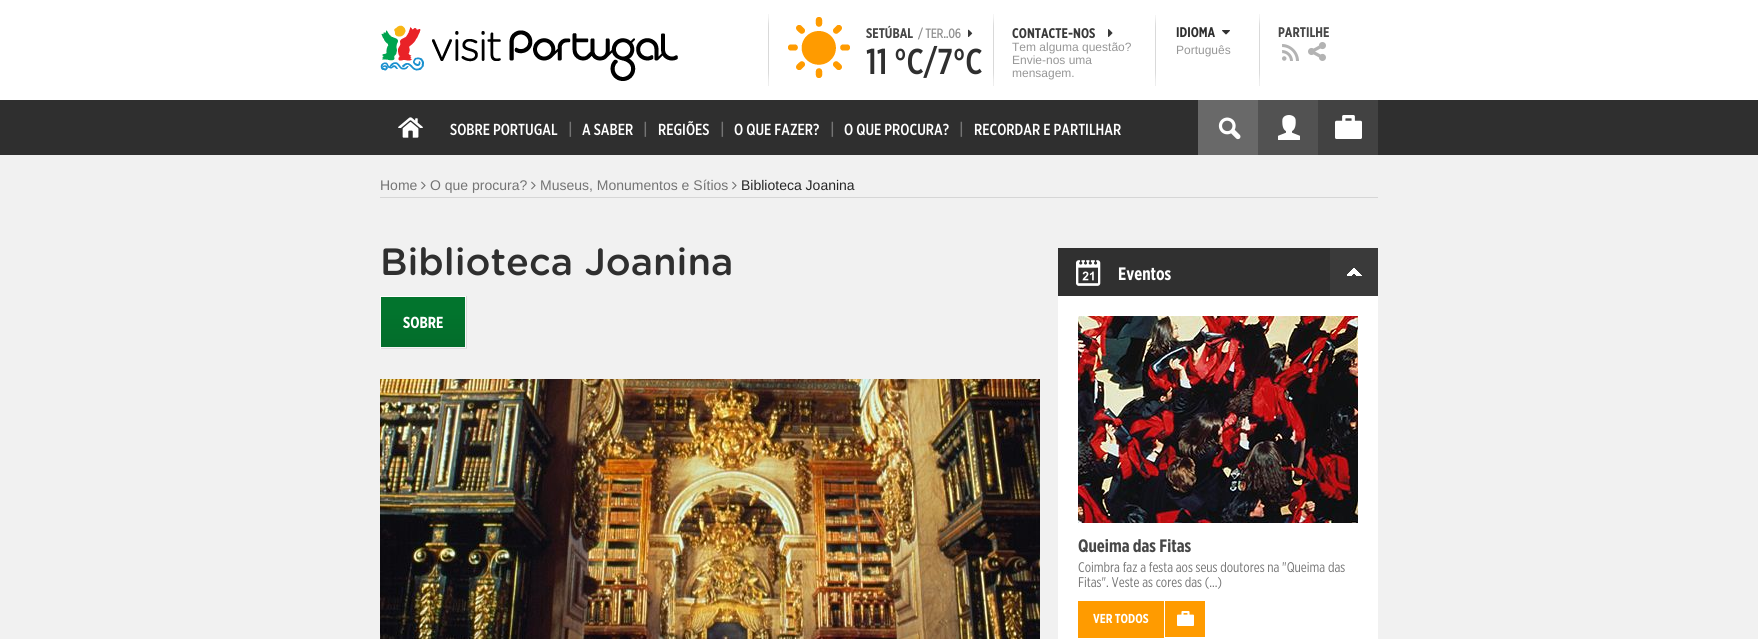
import math
import cairocffi as cairo

surface = cairo.ImageSurface(cairo.FORMAT_RGB24, 1758, 639)
ctx = cairo.Context(surface)
options = cairo.FontOptions()
options.set_hint_metrics(cairo.HINT_METRICS_OFF)
options.set_hint_style(cairo.HINT_STYLE_NONE)
ctx.set_font_options(options)
ctx.set_miter_limit(4)


def rgb(r, g, b):
    ctx.set_source_rgb(r / 255, g / 255, b / 255)


def face(family, size, italic, bold):
    ctx.select_font_face(family, cairo.FONT_SLANT_ITALIC if italic else cairo.FONT_SLANT_NORMAL, cairo.FONT_WEIGHT_BOLD if bold else cairo.FONT_WEIGHT_NORMAL)
    ctx.set_font_size(size)


def label(x, y, s):
    ctx.move_to(x, y)
    ctx.show_text(s)


def rect(x, y, w, h):
    ctx.rectangle(x, y, w, h)
    ctx.fill()


def image(path, x, y, w, h):
    ctx.save()
    ctx.set_source_surface(cairo.ImageSurface.create_from_png(path), x, y)
    ctx.rectangle(x, y, w, h)
    ctx.fill()
    ctx.restore()


rgb(241, 241, 241)
ctx.paint()
rgb(255, 255, 255)
rect(0, 0, 1758, 100)
image('image0.png', 380, 25, 298, 56)
image('image1.png', 768, 14, 1, 72)
image('image2.png', 788, 17, 62, 61)
face('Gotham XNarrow', 14, 0, 1)
rgb(71, 71, 71)
label(866, 38, 'SETÚBAL')
face('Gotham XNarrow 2', 13, 0, 1)
rgb(143, 143, 143)
label(918, 38, '/ TER..06')
image('image3.png', 968, 29, 5, 8)
face('Gotham XNarrow Medium', 36, 0, 0)
rgb(47, 47, 47)
label(866, 74, '11 °C/7°C')
image('image1.png', 993, 14, 1, 72)
face('Gotham XNarrow', 14, 0, 1)
rgb(57, 57, 57)
label(1012, 38, 'CONTACTE-NOS')
image('image4.png', 1108, 29, 5, 8)
face('Liberation Sans', 12, 0, 0)
rgb(151, 151, 151)
label(1012, 51, 'Tem alguma questão?')
label(1012, 64, 'Envie-nos uma')
label(1012, 77, 'mensagem.')
image('image5.png', 1155, 15, 1, 71)
face('Gotham XNarrow', 14, 0, 1)
rgb(47, 47, 47)
label(1176, 37, 'IDIOMA')
image('image6.png', 1222, 30, 8, 5)
face('Liberation Sans', 12, 0, 0)
rgb(151, 151, 151)
label(1176, 54, 'Português')
image('image1.png', 1259, 14, 1, 72)
face('Gotham XNarrow', 14, 0, 1)
rgb(71, 71, 71)
label(1278, 37, 'PARTILHE')
image('image7.png', 1282, 44, 17, 17)
image('image8.png', 1308, 42, 18, 19)
rgb(47, 47, 47)
rect(0, 100, 1758, 55)
image('image9.png', 398, 117, 25, 21)
face('Gotham XNarrow Medium', 16, 0, 0)
rgb(255, 255, 255)
label(450, 135, 'SOBRE PORTUGAL')
face('Gotham XNarrow Medium', 17, 0, 0)
rgb(116, 116, 116)
label(568, 135, '|')
face('Gotham XNarrow Medium', 16, 0, 0)
rgb(255, 255, 255)
label(582, 135, 'A SABER')
face('Gotham XNarrow Medium', 17, 0, 0)
rgb(116, 116, 116)
label(643, 135, '|')
face('Gotham XNarrow Medium', 16, 0, 0)
rgb(255, 255, 255)
label(658, 135, 'REGIÕES')
face('Gotham XNarrow Medium', 17, 0, 0)
rgb(116, 116, 116)
label(720, 135, '|')
face('Gotham XNarrow Medium', 16, 0, 0)
rgb(255, 255, 255)
label(734, 135, 'O QUE FAZER?')
face('Gotham XNarrow Medium', 17, 0, 0)
rgb(116, 116, 116)
label(830, 135, '|')
face('Gotham XNarrow Medium', 16, 0, 0)
rgb(255, 255, 255)
label(844, 135, 'O QUE PROCURA?')
face('Gotham XNarrow Medium', 17, 0, 0)
rgb(116, 116, 116)
label(959, 135, '|')
face('Gotham XNarrow Medium', 16, 0, 0)
rgb(255, 255, 255)
label(974, 135, 'RECORDAR E PARTILHAR')
rgb(105, 105, 105)
rect(1198, 100, 60, 55)
image('image10.png', 1218, 117, 23, 23)
rgb(82, 82, 82)
rect(1258, 100, 60, 55)
image('image11.png', 1278, 115, 22, 25)
rgb(66, 66, 66)
rect(1318, 100, 60, 55)
image('image12.png', 1335, 115, 27, 24)
face('Liberation Sans', 14, 0, 0)
rgb(116, 116, 116)
label(380, 190, 'Home')
image('image13.png', 421, 181, 5, 9)
label(430, 190, 'O que procura?')
image('image13.png', 531, 181, 5, 9)
label(540, 190, 'Museus, Monumentos e Sítios')
image('image13.png', 732, 181, 5, 9)
rgb(37, 37, 37)
label(741, 190, 'Biblioteca Joanina')
rgb(214, 214, 214)
rect(380, 197, 998, 1)
face('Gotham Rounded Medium', 38, 0, 0)
rgb(47, 47, 47)
label(380, 275, 'Biblioteca Joanina')
rgb(255, 255, 255)
rect(380, 296, 87, 1)
rgb(217, 217, 217)
rect(466, 296, 1, 53)
rgb(224, 224, 224)
rect(380, 348, 87, 1)
rgb(250, 250, 250)
rect(380, 296, 1, 53)
rect(465, 297, 1, 51)
rgb(245, 245, 245)
rect(381, 347, 85, 1)
gradient = cairo.LinearGradient(423, 297, 423, 347)
gradient.add_color_stop_rgba(0.3, 0.008, 0.455, 0.176, 1)
gradient.add_color_stop_rgba(1, 0.012, 0.427, 0.169, 1)
ctx.set_source(gradient)
rect(381, 297, 84, 50)
face('Gotham XNarrow', 16, 0, 1)
rgb(255, 255, 255)
label(403, 328, 'SOBRE')
image('image14.png', 380, 379, 660, 260)
rgb(48, 48, 48)
rect(1058, 248, 272, 48)
image('image15.png', 1076, 260, 25, 26)
face('Gotham XNarrow', 18, 0, 1)
rgb(255, 255, 255)
label(1118, 280, 'Eventos')
rgb(58, 58, 58)
rect(1330, 248, 48, 48)
image('image16.png', 1347, 268, 15, 8)
rgb(255, 255, 255)
rect(1058, 296, 320, 343)
image('image17.png', 1078, 316, 280, 207)
rgb(71, 71, 71)
label(1078, 552, 'Queima das Fitas')
face('Gotham XNarrow', 14, 0, 0)
rgb(116, 116, 116)
label(1078, 572, 'Coimbra faz a festa aos seus doutores na "Queima das')
label(1078, 587, 'Fitas". Veste as cores das (...)')
rgb(255, 155, 0)
rect(1078, 601, 86, 37)
face('Gotham XNarrow', 13, 0, 1)
rgb(255, 255, 255)
label(1093, 623, 'VER TODOS')
rgb(255, 155, 0)
rect(1165, 601, 40, 36)
image('image18.png', 1177, 611, 17, 15)
surface.write_to_png('render.png')
